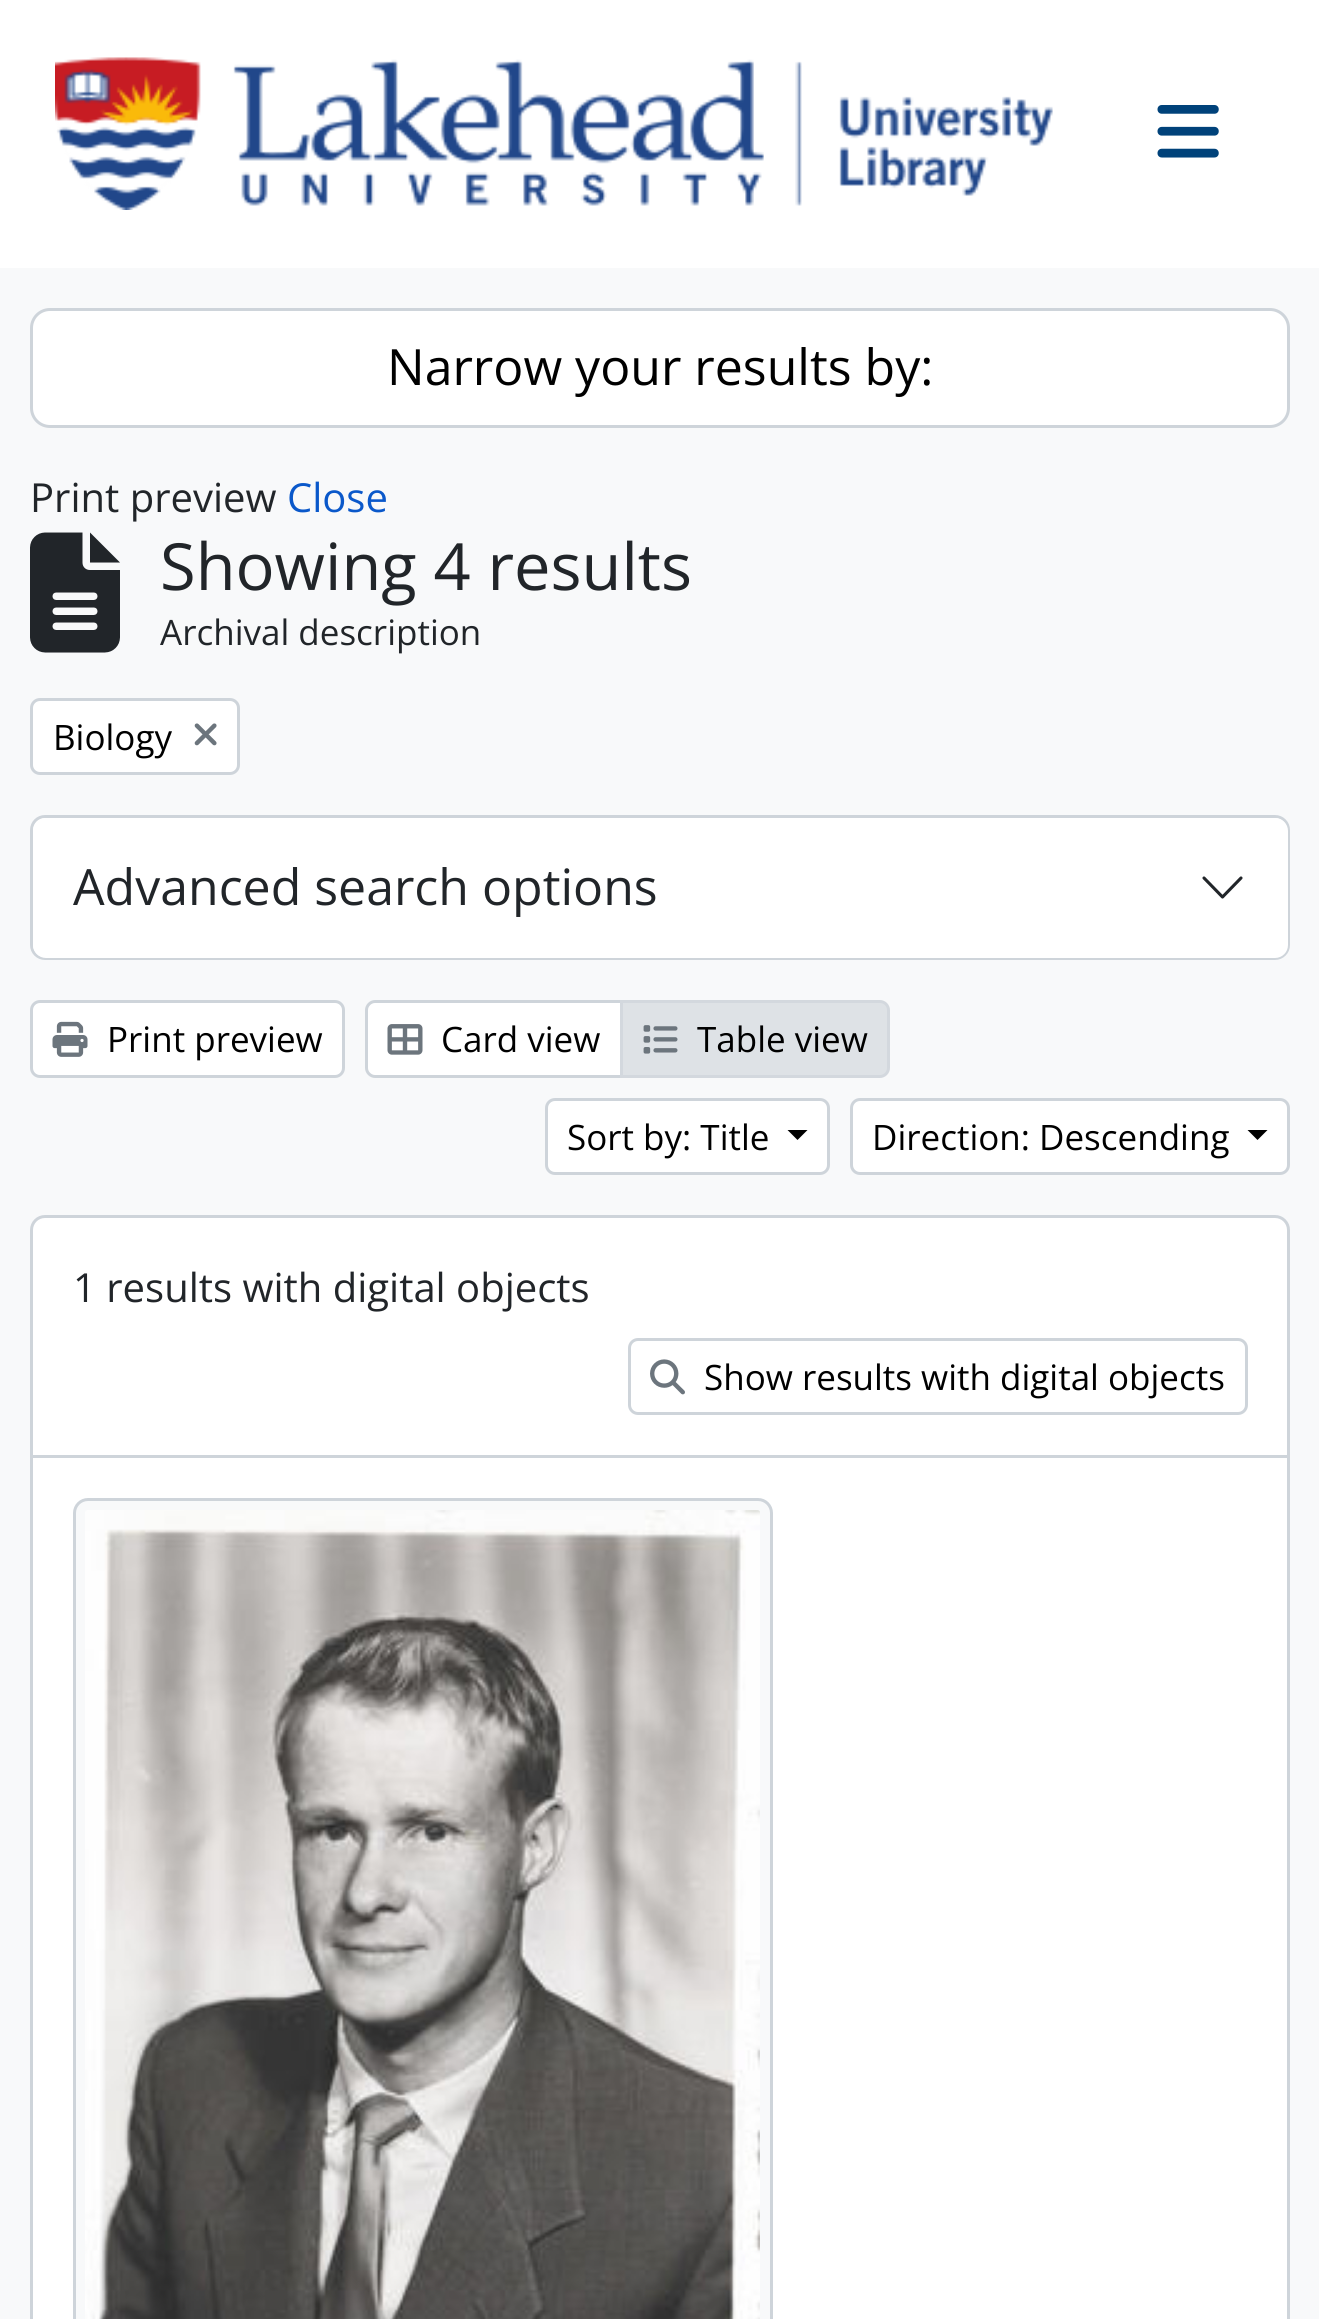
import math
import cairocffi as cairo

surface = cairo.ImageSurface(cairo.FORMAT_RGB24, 1319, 2319)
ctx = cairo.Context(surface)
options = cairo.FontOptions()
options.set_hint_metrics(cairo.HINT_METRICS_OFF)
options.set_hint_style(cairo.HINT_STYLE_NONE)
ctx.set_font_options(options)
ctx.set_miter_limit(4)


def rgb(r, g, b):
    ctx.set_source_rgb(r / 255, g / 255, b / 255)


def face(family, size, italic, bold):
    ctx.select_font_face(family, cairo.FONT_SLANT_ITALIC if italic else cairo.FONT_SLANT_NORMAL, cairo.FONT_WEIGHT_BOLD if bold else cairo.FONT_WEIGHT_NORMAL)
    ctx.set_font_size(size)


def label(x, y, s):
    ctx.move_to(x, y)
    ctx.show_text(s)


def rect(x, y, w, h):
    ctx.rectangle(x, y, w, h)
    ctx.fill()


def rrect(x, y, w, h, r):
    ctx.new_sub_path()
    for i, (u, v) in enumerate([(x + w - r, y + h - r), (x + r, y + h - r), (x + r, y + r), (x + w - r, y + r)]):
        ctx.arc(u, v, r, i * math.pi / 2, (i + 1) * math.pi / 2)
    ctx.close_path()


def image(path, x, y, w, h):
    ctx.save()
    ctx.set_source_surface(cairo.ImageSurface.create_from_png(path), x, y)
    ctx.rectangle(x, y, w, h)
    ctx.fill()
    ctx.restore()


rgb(248, 249, 250)
ctx.paint()
rgb(255, 255, 255)
rect(0, 0, 1319, 268)
image('image0.png', 55, 57, 998, 153)
image('image1.png', 1157, 105, 62, 53)
rrect(31.5, 309.5, 1257, 117, 18.5)
ctx.fill_preserve()
rgb(206, 212, 218)
ctx.set_line_width(3)
ctx.stroke()
face('Open Sans', 50, 0, 0)
rgb(0, 0, 0)
label(387, 385, 'Narrow your results by:')
face('Open Sans', 40, 0, 0)
rgb(33, 37, 41)
label(30, 512, 'Print preview')
rgb(10, 88, 202)
label(287, 512, 'Close')
image('image2.png', 30, 532, 90, 121)
face('Open Sans', 65, 0, 0)
rgb(33, 37, 41)
label(160, 590, 'Showing 4 results')
face('Open Sans', 35, 0, 0)
label(160, 645, 'Archival description')
rgb(255, 255, 255)
rrect(31.5, 699.5, 207, 74, 8.5)
ctx.fill_preserve()
rgb(206, 212, 218)
ctx.stroke()
rgb(0, 0, 0)
label(53, 750, 'Biology')
image('image3.png', 194, 723, 23, 23)
rgb(255, 255, 255)
rrect(31.5, 816.5, 1257, 142, 13.5)
ctx.fill_preserve()
rgb(206, 212, 218)
ctx.stroke()
rgb(255, 255, 255)
rrect(33, 818, 1255, 140, 13)
ctx.fill()
face('Open Sans', 50, 0, 0)
rgb(33, 37, 41)
label(73, 905, 'Advanced search options')
ctx.new_path()
ctx.move_to(1204, 878)
ctx.line_to(1222.5, 897)
ctx.line_to(1241, 878)
ctx.set_line_width(3.1)
ctx.set_line_cap(cairo.LINE_CAP_ROUND)
ctx.set_line_join(cairo.LINE_JOIN_ROUND)
ctx.stroke()
rgb(255, 255, 255)
rrect(31.5, 1001.5, 312, 75, 8.5)
ctx.fill_preserve()
rgb(206, 212, 218)
ctx.set_line_width(3)
ctx.set_line_cap(cairo.LINE_CAP_BUTT)
ctx.set_line_join(cairo.LINE_JOIN_MITER)
ctx.stroke()
image('image4.png', 52, 1021, 36, 36)
face('Open Sans', 35, 0, 0)
rgb(0, 0, 0)
label(107, 1052, 'Print preview')
rgb(255, 255, 255)
ctx.new_path()
ctx.move_to(375, 1001.5)
ctx.line_to(621.5, 1001.5)
ctx.line_to(621.5, 1076.5)
ctx.line_to(375, 1076.5)
ctx.curve_to(370.5, 1076.5, 366.5, 1072.5, 366.5, 1068)
ctx.line_to(366.5, 1010)
ctx.curve_to(366.5, 1005.5, 370.5, 1001.5, 375, 1001.5)
ctx.close_path()
ctx.fill_preserve()
rgb(206, 212, 218)
ctx.stroke()
image('image5.png', 387, 1024, 36, 31)
rgb(0, 0, 0)
label(441, 1052, 'Card view')
rgb(222, 226, 230)
ctx.new_path()
ctx.move_to(621.5, 1001.5)
ctx.line_to(880, 1001.5)
ctx.curve_to(884.5, 1001.5, 888.5, 1005.5, 888.5, 1010)
ctx.line_to(888.5, 1068)
ctx.curve_to(888.5, 1072.5, 884.5, 1076.5, 880, 1076.5)
ctx.line_to(621.5, 1076.5)
ctx.close_path()
ctx.fill_preserve()
rgb(211, 216, 222)
ctx.stroke()
image('image6.png', 643, 1025, 35, 29)
rgb(0, 0, 0)
label(697, 1052, 'Table view')
rgb(255, 255, 255)
rrect(546.5, 1099.5, 282, 74, 8.5)
ctx.fill_preserve()
rgb(206, 212, 218)
ctx.stroke()
rgb(0, 0, 0)
label(567, 1150, 'Sort by: Title')
ctx.new_path()
ctx.move_to(787.5, 1130)
ctx.line_to(807.5, 1130)
ctx.line_to(797.5, 1140)
ctx.close_path()
ctx.fill()
rgb(255, 255, 255)
rrect(851.5, 1099.5, 437, 74, 8.5)
ctx.fill_preserve()
rgb(206, 212, 218)
ctx.stroke()
rgb(0, 0, 0)
label(872, 1150, 'Direction: Descending')
ctx.new_path()
ctx.move_to(1247.5, 1130)
ctx.line_to(1267.5, 1130)
ctx.line_to(1257.5, 1140)
ctx.close_path()
ctx.fill()
rgb(255, 255, 255)
rrect(31.5, 1216.5, 1257, 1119, 13.5)
ctx.fill_preserve()
rgb(206, 212, 218)
ctx.stroke()
rect(33, 1455, 1255, 3)
face('Open Sans', 40, 0, 0)
rgb(33, 37, 41)
label(73, 1302, '1 results with digital objects')
rrect(629.5, 1339.5, 617, 74, 8.5)
rgb(206, 212, 218)
ctx.stroke()
image('image7.png', 650, 1359, 35, 36)
face('Open Sans', 35, 0, 0)
rgb(0, 0, 0)
label(704, 1390, 'Show results with digital objects')
rgb(248, 249, 250)
rrect(74.5, 1499.5, 697, 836, 13.5)
ctx.fill_preserve()
rgb(206, 212, 218)
ctx.stroke()
image('image8.png', 85, 1510, 675, 809)
surface.write_to_png('render.png')
